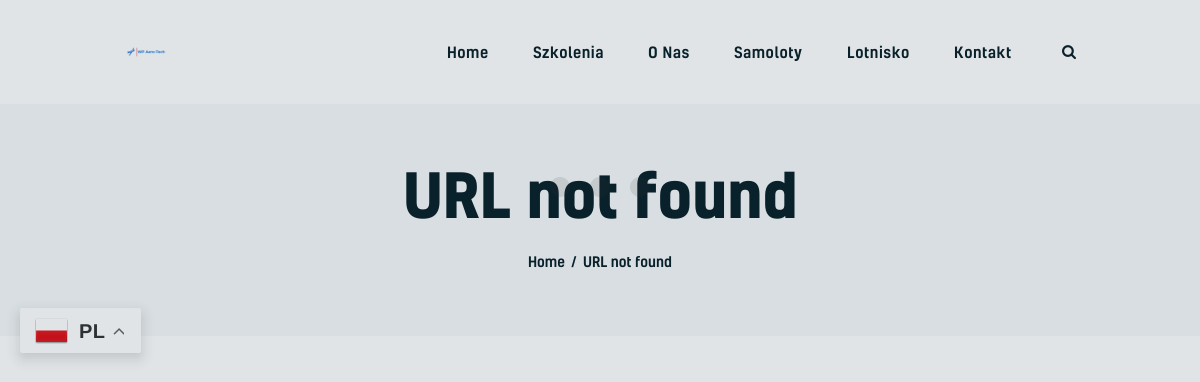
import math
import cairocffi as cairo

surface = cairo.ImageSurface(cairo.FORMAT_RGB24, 1200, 382)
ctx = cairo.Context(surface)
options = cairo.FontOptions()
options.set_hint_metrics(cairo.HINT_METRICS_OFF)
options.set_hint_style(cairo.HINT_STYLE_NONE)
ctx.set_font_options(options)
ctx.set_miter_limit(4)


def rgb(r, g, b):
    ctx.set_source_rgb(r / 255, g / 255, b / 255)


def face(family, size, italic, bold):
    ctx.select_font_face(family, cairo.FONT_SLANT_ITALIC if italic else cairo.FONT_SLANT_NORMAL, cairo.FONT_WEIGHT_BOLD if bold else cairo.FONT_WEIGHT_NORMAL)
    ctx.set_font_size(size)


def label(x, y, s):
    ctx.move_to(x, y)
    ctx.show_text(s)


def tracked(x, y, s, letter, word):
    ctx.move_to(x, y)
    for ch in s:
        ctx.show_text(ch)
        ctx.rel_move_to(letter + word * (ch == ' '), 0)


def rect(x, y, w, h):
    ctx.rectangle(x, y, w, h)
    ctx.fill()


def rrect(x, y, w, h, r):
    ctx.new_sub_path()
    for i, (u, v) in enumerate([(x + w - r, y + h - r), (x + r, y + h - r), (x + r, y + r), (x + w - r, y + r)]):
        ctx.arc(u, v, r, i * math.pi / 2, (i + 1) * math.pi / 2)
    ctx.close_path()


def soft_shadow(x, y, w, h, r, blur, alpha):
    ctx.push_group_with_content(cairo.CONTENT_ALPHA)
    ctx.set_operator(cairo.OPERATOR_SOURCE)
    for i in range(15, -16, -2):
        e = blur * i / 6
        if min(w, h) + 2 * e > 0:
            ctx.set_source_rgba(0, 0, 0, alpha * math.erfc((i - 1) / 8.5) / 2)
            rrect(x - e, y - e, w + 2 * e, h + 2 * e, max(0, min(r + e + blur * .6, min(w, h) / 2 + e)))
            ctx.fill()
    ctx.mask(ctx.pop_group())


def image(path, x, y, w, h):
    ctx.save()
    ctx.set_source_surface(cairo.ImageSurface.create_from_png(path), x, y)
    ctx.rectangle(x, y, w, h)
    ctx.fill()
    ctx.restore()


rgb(225, 228, 230)
ctx.paint()
image('image0.png', 126, 47, 40, 10)
face('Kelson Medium', 15, 0, 0)
rgb(9, 33, 43)
tracked(447, 58, 'Home', 0.5, 0)
tracked(533, 58, 'Szkolenia', 0.5, 0)
tracked(648, 58, 'O Nas', 0.5, 0)
tracked(734, 58, 'Samoloty', 0.5, 0)
tracked(847, 58, 'Lotnisko', 0.5, 0)
tracked(954, 58, 'Kontakt', 0.5, 0)
image('image1.png', 1062, 45, 14, 15)
rgb(216, 222, 225)
rect(0, 104, 1200, 232)
face('Kelson', 60, 0, 1)
rgb(9, 33, 43)
label(403, 218, 'URL not found')
face('Kelson Medium', 14, 0, 0)
label(528, 267, 'Home')
label(571, 267, '/')
label(583, 267, 'URL not found')
ctx.set_source_rgba(0.2, 0.2, 0.2, 0.12)
ctx.new_path()
ctx.arc(560, 187, 10, 0, 2 * math.pi)
ctx.fill()
ctx.arc(600, 187, 10, 0, 2 * math.pi)
ctx.fill()
ctx.arc(640, 187, 10, 0, 2 * math.pi)
ctx.fill()
rgb(1, 4, 5)
soft_shadow(20, 313, 121, 45, 2, 7.5, 0.15)
rgb(225, 228, 230)
rrect(20, 308, 121, 45, 2)
ctx.fill()
image('image2.png', 35, 318, 33, 26)
face('Liberation Sans', 20, 0, 1)
rgb(46, 49, 50)
tracked(79, 338, 'PL', 0.5, 0)
image('image3.png', 113, 328, 11, 7)
surface.write_to_png('render.png')
